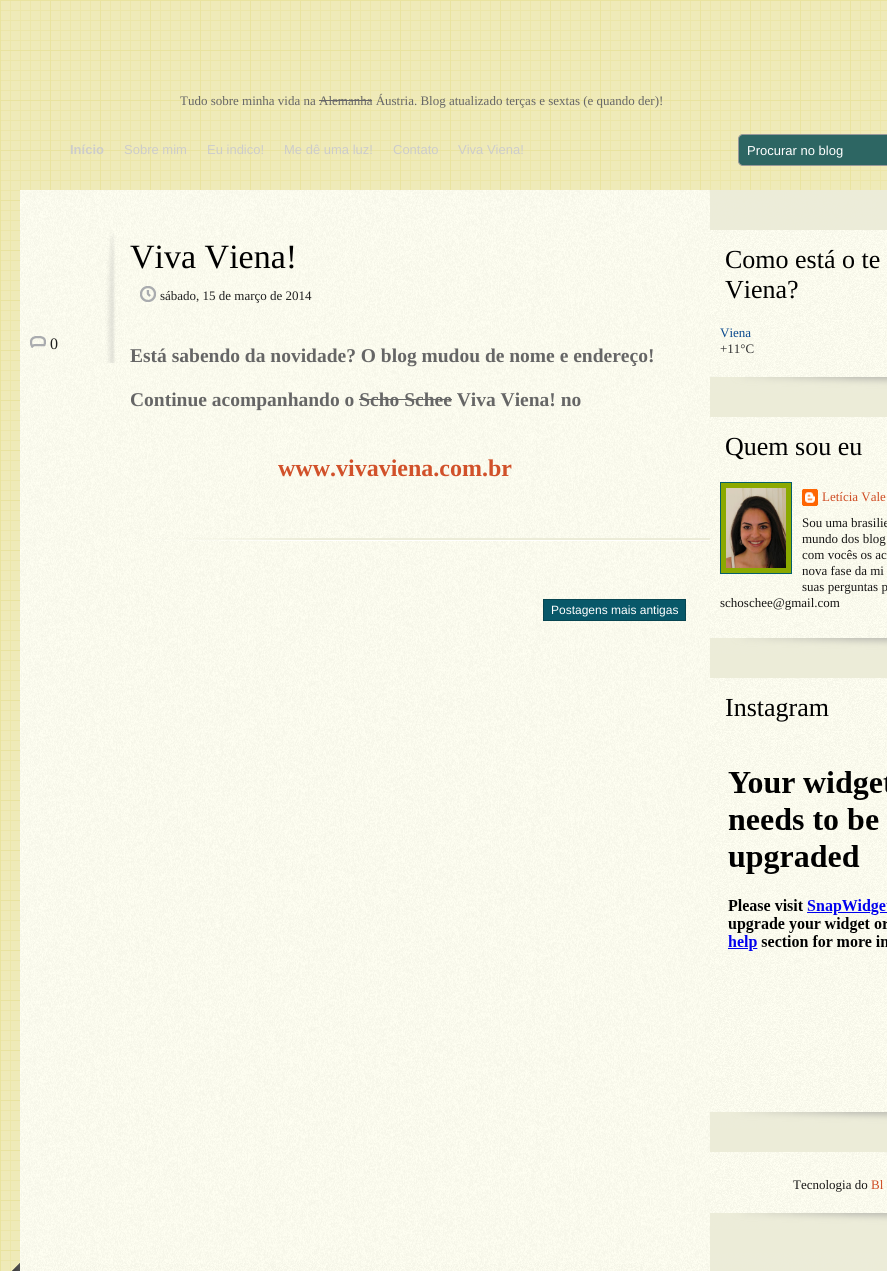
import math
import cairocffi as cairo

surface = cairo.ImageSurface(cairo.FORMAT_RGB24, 887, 1271)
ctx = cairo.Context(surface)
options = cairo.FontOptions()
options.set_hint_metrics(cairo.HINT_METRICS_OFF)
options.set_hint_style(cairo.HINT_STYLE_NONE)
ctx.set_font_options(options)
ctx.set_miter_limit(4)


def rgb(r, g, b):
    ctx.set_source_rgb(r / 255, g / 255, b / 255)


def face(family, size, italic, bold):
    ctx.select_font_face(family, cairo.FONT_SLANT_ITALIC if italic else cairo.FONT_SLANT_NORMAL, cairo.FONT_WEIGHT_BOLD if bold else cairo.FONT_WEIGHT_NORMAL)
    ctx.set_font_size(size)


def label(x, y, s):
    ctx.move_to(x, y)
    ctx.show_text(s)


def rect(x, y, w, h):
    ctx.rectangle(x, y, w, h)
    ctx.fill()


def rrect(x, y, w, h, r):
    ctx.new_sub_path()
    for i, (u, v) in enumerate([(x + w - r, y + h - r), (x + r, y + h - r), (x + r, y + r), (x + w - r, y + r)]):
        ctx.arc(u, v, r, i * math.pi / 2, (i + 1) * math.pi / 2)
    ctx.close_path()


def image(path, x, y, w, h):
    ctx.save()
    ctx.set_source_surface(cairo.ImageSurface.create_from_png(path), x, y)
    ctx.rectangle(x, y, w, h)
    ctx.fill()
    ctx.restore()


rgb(255, 255, 255)
ctx.paint()
image('image0.png', 0, 0, 887, 1263)
face('Liberation Serif', 13, 0, 0)
rgb(102, 102, 102)
label(180, 105, 'Tudo sobre minha vida na Alemanha Áustria. Blog atualizado terças e sextas (e quando der)!')
rect(319, 100, 53, 1)
rgb(45, 102, 99)
rrect(738.5, 134.5, 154, 31, 4.5)
ctx.fill_preserve()
rgb(153, 153, 153)
ctx.set_line_width(1)
ctx.stroke()
rgb(45, 102, 99)
rect(742, 135, 1, 30)
face('Liberation Sans', 13, 0, 0)
rgb(255, 255, 255)
label(747, 155, 'Procurar no blog')
face('Liberation Sans', 13, 0, 1)
rgb(204, 204, 204)
label(70, 154, 'Início')
face('Liberation Sans', 13, 0, 0)
label(124, 154, 'Sobre mim')
label(207, 154, 'Eu indico!')
label(284, 154, 'Me dê uma luz!')
label(393, 154, 'Contato')
label(458, 154, 'Viva Viena!')
image('image1.png', 20, 190, 867, 1073)
image('image2.png', 131, 537, 579, 5)
image('image3.png', 105, 231, 15, 132)
image('image4.png', 30, 336, 16, 12)
face('Liberation Serif', 16, 0, 0)
rgb(30, 30, 30)
label(50, 349, '0')
face('Liberation Serif', 34, 0, 0)
rgb(0, 0, 0)
label(130, 268, 'Viva Viena!')
image('image5.png', 140, 286, 16, 16)
face('Liberation Serif', 13, 0, 0)
rgb(30, 30, 30)
label(160, 300, 'sábado, 15 de março de 2014')
face('Liberation Serif', 19.5, 0, 1)
rgb(102, 102, 102)
label(130, 362, 'Está sabendo da novidade? O blog mudou de nome e endereço!')
label(130, 406, 'Continue acompanhando o Scho Schee Viva Viena! no')
rect(359, 399, 93, 1)
face('Liberation Serif', 24, 0, 1)
rgb(209, 81, 42)
label(278, 476, 'www.vivaviena.com.br')
rgb(8, 88, 105)
ctx.rectangle(543.5, 599.5, 142, 21)
ctx.fill_preserve()
rgb(7, 69, 81)
ctx.stroke()
face('Liberation Sans', 12, 0, 0)
rgb(255, 255, 255)
label(551, 614, 'Postagens mais antigas')
image('image6.png', 710, 230, 177, 147)
image('image7.png', 710, 377, 177, 40)
face('Liberation Serif', 26, 0, 0)
rgb(0, 0, 0)
label(725, 268, 'Como está o te')
label(725, 298, 'Viena?')
face('Liberation Serif', 13, 0, 0)
rgb(8, 72, 141)
label(720, 337, 'Viena')
rgb(51, 51, 51)
label(720, 353, '+11°C')
image('image8.png', 710, 417, 177, 796)
image('image7.png', 710, 638, 177, 40)
face('Liberation Serif', 26, 0, 0)
rgb(0, 0, 0)
label(725, 455, 'Quem sou eu')
rgb(139, 169, 0)
ctx.rectangle(720.5, 482.5, 71, 91)
ctx.fill_preserve()
rgb(5, 95, 106)
ctx.stroke()
image('image9.png', 726, 488, 60, 80)
image('image10.png', 802, 489, 16, 17)
face('Liberation Serif', 13, 0, 0)
rgb(207, 76, 35)
label(822, 501, 'Letícia Vale')
rgb(22, 21, 20)
label(802, 527, 'Sou uma brasilie')
label(802, 543, 'mundo dos blog')
label(802, 559, 'com vocês os ac')
label(802, 575, 'nova fase da mi')
label(802, 591, 'suas perguntas p')
label(720, 607, 'schoschee@gmail.com')
image('image7.png', 710, 1112, 177, 40)
face('Liberation Serif', 26, 0, 0)
rgb(0, 0, 0)
label(725, 716, 'Instagram')
image('image11.png', 728, 771, 159, 180)
image('image7.png', 710, 1213, 177, 40)
face('Liberation Serif', 13, 0, 0)
rgb(22, 21, 20)
label(793, 1189, 'Tecnologia do')
rgb(207, 76, 35)
label(871, 1189, 'Bl')
image('image12.png', 0, 1263, 887, 8)
surface.write_to_png('render.png')
